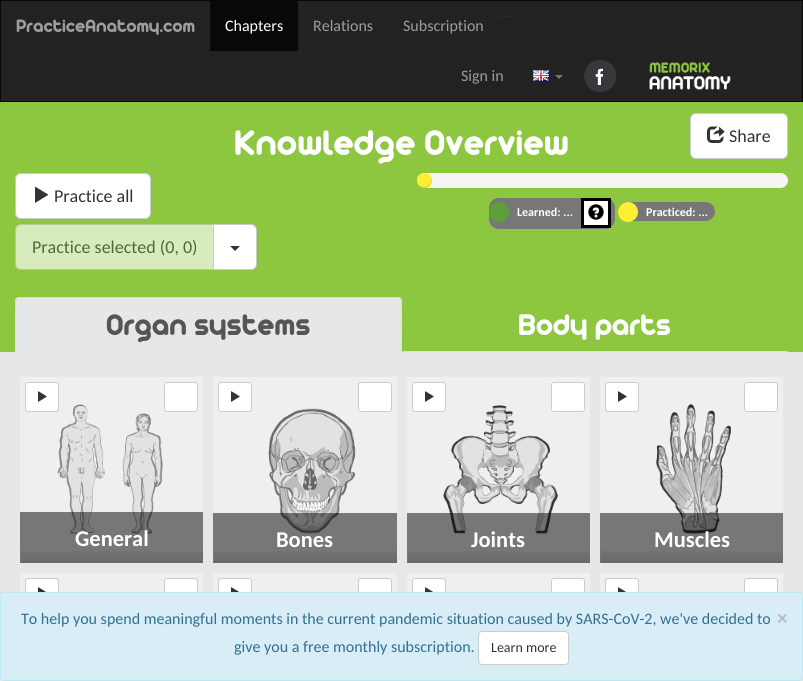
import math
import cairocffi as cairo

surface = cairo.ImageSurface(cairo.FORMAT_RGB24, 803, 681)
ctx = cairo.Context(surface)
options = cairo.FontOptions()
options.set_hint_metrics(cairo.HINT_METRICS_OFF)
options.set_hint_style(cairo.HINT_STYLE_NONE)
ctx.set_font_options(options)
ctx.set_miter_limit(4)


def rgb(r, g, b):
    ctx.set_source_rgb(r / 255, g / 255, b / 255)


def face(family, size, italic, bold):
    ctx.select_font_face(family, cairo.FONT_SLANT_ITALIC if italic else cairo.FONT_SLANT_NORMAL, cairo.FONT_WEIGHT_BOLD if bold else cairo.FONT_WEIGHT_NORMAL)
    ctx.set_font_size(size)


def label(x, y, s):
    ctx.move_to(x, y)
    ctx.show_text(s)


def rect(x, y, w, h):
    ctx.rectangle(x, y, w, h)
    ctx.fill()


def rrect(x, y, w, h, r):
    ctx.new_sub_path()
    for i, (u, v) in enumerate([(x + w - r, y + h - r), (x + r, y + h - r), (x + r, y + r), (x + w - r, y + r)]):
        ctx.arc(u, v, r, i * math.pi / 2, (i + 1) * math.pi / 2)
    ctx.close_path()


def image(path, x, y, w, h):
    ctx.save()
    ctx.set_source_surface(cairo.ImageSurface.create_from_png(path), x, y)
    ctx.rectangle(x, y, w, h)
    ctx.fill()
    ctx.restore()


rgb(230, 231, 232)
ctx.paint()
rgb(34, 34, 34)
ctx.rectangle(0.5, 0.5, 802, 101)
ctx.fill_preserve()
rgb(8, 8, 8)
ctx.set_line_width(1)
ctx.stroke()
face('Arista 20', 18, 0, 0)
rgb(157, 157, 157)
label(16, 32, 'PracticeAnatomy.com')
face('Carlito', 16, 0, 0)
rgb(51, 51, 51)
label(499, 17, '...')
rgb(8, 8, 8)
rect(210, 1, 88, 50)
rgb(255, 255, 255)
label(225, 31, 'Chapters')
rgb(157, 157, 157)
label(313, 31, 'Relations')
label(403, 31, 'Subscription')
label(461, 81, 'Sign in')
image('image0.png', 533, 70, 16, 11)
rgb(119, 119, 119)
ctx.new_path()
ctx.move_to(555, 75)
ctx.line_to(563, 75)
ctx.line_to(559, 79)
ctx.close_path()
ctx.fill()
image('image1.png', 584, 60, 33, 32)
image('image2.png', 649, 62, 82, 28)
rgb(141, 198, 63)
rect(0, 102, 803, 250)
face('Arista 20', 36, 0, 0)
rgb(255, 255, 255)
label(234, 155, 'Knowledge Overview')
rrect(690.5, 113.5, 97, 45, 5.5)
ctx.fill_preserve()
rgb(204, 204, 204)
ctx.stroke()
image('image3.png', 707, 126, 18, 17)
face('Carlito', 18, 0, 0)
rgb(51, 51, 51)
label(729, 142, 'Share')
rgb(255, 255, 255)
rrect(15.5, 173.5, 135, 45, 5.5)
ctx.fill_preserve()
rgb(204, 204, 204)
ctx.stroke()
image('image4.png', 35, 186, 14, 17)
rgb(51, 51, 51)
label(54, 202, 'Practice all')
rgb(215, 235, 188)
ctx.new_path()
ctx.move_to(21, 224.5)
ctx.line_to(214.5, 224.5)
ctx.line_to(214.5, 269.5)
ctx.line_to(21, 269.5)
ctx.curve_to(18, 269.5, 15.5, 267, 15.5, 264)
ctx.line_to(15.5, 230)
ctx.curve_to(15.5, 227, 18, 224.5, 21, 224.5)
ctx.close_path()
ctx.fill_preserve()
rgb(182, 202, 155)
ctx.stroke()
rgb(83, 102, 55)
label(32, 253, 'Practice selected (0, 0)')
rgb(255, 255, 255)
ctx.new_path()
ctx.move_to(213.5, 224.5)
ctx.line_to(251, 224.5)
ctx.curve_to(254, 224.5, 256.5, 227, 256.5, 230)
ctx.line_to(256.5, 264)
ctx.curve_to(256.5, 267, 254, 269.5, 251, 269.5)
ctx.line_to(213.5, 269.5)
ctx.close_path()
ctx.fill_preserve()
rgb(204, 204, 204)
ctx.stroke()
rgb(51, 51, 51)
ctx.new_path()
ctx.move_to(230, 246)
ctx.line_to(240, 246)
ctx.line_to(235, 251)
ctx.close_path()
ctx.fill()
rgb(245, 245, 245)
rrect(417, 173, 371, 15, 7.5)
ctx.fill()
rgb(255, 238, 51)
ctx.arc(424.5, 180.5, 7.5, 0, 2 * math.pi)
ctx.fill()
ctx.set_source_rgba(0, 0, 0, 0.15)
ctx.new_path()
ctx.move_to(417.5, 178.5)
ctx.curve_to(416.5, 180.5, 417, 183, 418.5, 184.5)
ctx.curve_to(423.5, 192.5, 435.5, 185, 431, 177)
ctx.curve_to(435, 188.5, 415.5, 191, 417.5, 178.5)
ctx.close_path()
ctx.fill()
rgb(119, 119, 119)
rrect(489, 198, 126, 31, 10)
ctx.fill()
rgb(92, 160, 60)
ctx.arc(499, 212, 10, 0, 2 * math.pi)
ctx.fill()
face('Carlito', 12, 0, 1)
rgb(255, 255, 255)
label(517, 216, 'Learned: ...')
ctx.rectangle(582.5, 199.5, 27, 27)
ctx.fill_preserve()
rgb(0, 0, 0)
ctx.set_line_width(3)
ctx.stroke()
image('image5.png', 588, 204, 16, 16)
rgb(119, 119, 119)
rrect(618, 202, 97, 19, 9.5)
ctx.fill()
rgb(255, 238, 51)
ctx.arc(628, 212, 10, 0, 2 * math.pi)
ctx.fill()
rgb(255, 255, 255)
label(646, 216, 'Practiced: ...')
rgb(230, 231, 232)
ctx.new_path()
ctx.move_to(19, 297)
ctx.line_to(398, 297)
ctx.curve_to(400, 297, 402, 299, 402, 301)
ctx.line_to(402, 352)
ctx.line_to(15, 352)
ctx.line_to(15, 301)
ctx.curve_to(15, 299, 17, 297, 19, 297)
ctx.close_path()
ctx.fill()
rgb(221, 221, 221)
ctx.new_path()
ctx.move_to(19, 297)
ctx.line_to(16, 298)
ctx.line_to(17, 299)
ctx.line_to(19, 298)
ctx.line_to(398, 298)
ctx.line_to(400, 299)
ctx.line_to(401, 298)
ctx.line_to(398, 297)
ctx.close_path()
ctx.fill()
ctx.new_path()
ctx.move_to(402, 352)
ctx.line_to(402, 301)
ctx.line_to(401, 298)
ctx.line_to(400, 299)
ctx.curve_to(402, 301, 401, 345, 401, 351)
ctx.close_path()
ctx.fill()
rgb(230, 231, 232)
ctx.new_path()
ctx.move_to(402, 352)
ctx.line_to(401, 351)
ctx.line_to(16, 351)
ctx.line_to(15, 352)
ctx.close_path()
ctx.fill()
rgb(221, 221, 221)
ctx.new_path()
ctx.move_to(15, 352)
ctx.line_to(16, 351)
ctx.curve_to(16, 345, 15, 301, 17, 299)
ctx.line_to(16, 298)
ctx.line_to(15, 301)
ctx.close_path()
ctx.fill()
face('Arista 20', 30, 0, 0)
rgb(85, 85, 85)
label(106, 335, 'Organ systems')
rgb(221, 221, 221)
ctx.new_path()
ctx.move_to(788, 352)
ctx.line_to(787, 351)
ctx.line_to(403, 351)
ctx.line_to(402, 352)
ctx.close_path()
ctx.fill()
rgb(255, 255, 255)
label(518, 335, 'Body parts')
rgb(239, 239, 239)
rect(20, 377, 183, 184)
image('image7.png', 57, 404, 106, 131)
rgb(255, 255, 255)
rrect(25.5, 382.5, 33, 29, 2.5)
ctx.fill_preserve()
rgb(204, 204, 204)
ctx.set_line_width(1)
ctx.stroke()
image('image6.png', 38, 391, 9, 11)
rgb(255, 255, 255)
rrect(164.5, 382.5, 33, 29, 2.5)
ctx.fill_preserve()
rgb(204, 204, 204)
ctx.stroke()
ctx.set_source_rgba(0, 0, 0, 0.5)
rect(20, 512, 183, 51)
face('Carlito', 22.5, 0, 1)
rgb(255, 255, 255)
label(75, 546, 'General')
gradient = cairo.LinearGradient(113, 548, 113, 568)
gradient.add_color_stop_rgba(0, 0.392, 0.392, 0.392, 0)
gradient.add_color_stop_rgba(1, 0.392, 0.392, 0.392, 1)
ctx.set_source(gradient)
rect(21, 551, 182, 12)
rgb(239, 239, 239)
rect(213, 377, 184, 184)
rgb(255, 255, 255)
rrect(218.5, 382.5, 33, 29, 2.5)
ctx.fill_preserve()
rgb(204, 204, 204)
ctx.stroke()
image('image6.png', 231, 391, 9, 11)
rgb(255, 255, 255)
rrect(358.5, 382.5, 33, 29, 2.5)
ctx.fill_preserve()
rgb(204, 204, 204)
ctx.stroke()
image('image8.png', 268, 408, 88, 126)
ctx.set_source_rgba(0, 0, 0, 0.5)
rect(213, 513, 184, 50)
rgb(255, 255, 255)
label(276, 547, 'Bones')
gradient = cairo.LinearGradient(306, 548, 306, 568)
gradient.add_color_stop_rgba(0, 0.392, 0.392, 0.392, 0)
gradient.add_color_stop_rgba(1, 0.392, 0.392, 0.392, 1)
ctx.set_source(gradient)
rect(214, 551, 183, 12)
rgb(239, 239, 239)
rect(407, 377, 183, 184)
image('image9.png', 443, 405, 115, 129)
rgb(255, 255, 255)
rrect(412.5, 382.5, 33, 29, 2.5)
ctx.fill_preserve()
rgb(204, 204, 204)
ctx.stroke()
image('image6.png', 425, 391, 9, 11)
rgb(255, 255, 255)
rrect(551.5, 382.5, 33, 29, 2.5)
ctx.fill_preserve()
rgb(204, 204, 204)
ctx.stroke()
ctx.set_source_rgba(0, 0, 0, 0.5)
rect(407, 513, 183, 50)
rgb(255, 255, 255)
label(471, 547, 'Joints')
gradient = cairo.LinearGradient(500, 548, 500, 568)
gradient.add_color_stop_rgba(0, 0.392, 0.392, 0.392, 0)
gradient.add_color_stop_rgba(1, 0.392, 0.392, 0.392, 1)
ctx.set_source(gradient)
rect(408, 551, 182, 12)
rgb(239, 239, 239)
rect(600, 377, 183, 184)
rgb(255, 255, 255)
rrect(605.5, 382.5, 33, 29, 2.5)
ctx.fill_preserve()
rgb(204, 204, 204)
ctx.stroke()
image('image6.png', 618, 391, 9, 11)
rgb(255, 255, 255)
rrect(744.5, 382.5, 33, 29, 2.5)
ctx.fill_preserve()
rgb(204, 204, 204)
ctx.stroke()
image('image10.png', 656, 404, 75, 130)
ctx.set_source_rgba(0, 0, 0, 0.5)
rect(600, 513, 183, 50)
rgb(255, 255, 255)
label(654, 547, 'Muscles')
gradient = cairo.LinearGradient(693, 548, 693, 568)
gradient.add_color_stop_rgba(0, 0.392, 0.392, 0.392, 0)
gradient.add_color_stop_rgba(1, 0.392, 0.392, 0.392, 1)
ctx.set_source(gradient)
rect(601, 551, 182, 12)
rgb(239, 239, 239)
rect(20, 573, 183, 19)
rgb(255, 255, 255)
rrect(25.5, 578.5, 33, 29, 2.5)
ctx.fill_preserve()
rgb(204, 204, 204)
ctx.stroke()
image('image11.png', 38, 587, 8, 5)
rgb(255, 255, 255)
rrect(164.5, 578.5, 33, 29, 2.5)
ctx.fill_preserve()
rgb(204, 204, 204)
ctx.stroke()
rgb(239, 239, 239)
rect(213, 573, 184, 19)
rgb(255, 255, 255)
rrect(218.5, 578.5, 33, 29, 2.5)
ctx.fill_preserve()
rgb(204, 204, 204)
ctx.stroke()
image('image11.png', 231, 587, 8, 5)
rgb(255, 255, 255)
rrect(358.5, 578.5, 33, 29, 2.5)
ctx.fill_preserve()
rgb(204, 204, 204)
ctx.stroke()
rgb(239, 239, 239)
rect(407, 573, 183, 19)
rgb(255, 255, 255)
rrect(412.5, 578.5, 33, 29, 2.5)
ctx.fill_preserve()
rgb(204, 204, 204)
ctx.stroke()
image('image11.png', 425, 587, 8, 5)
rgb(255, 255, 255)
rrect(551.5, 578.5, 33, 29, 2.5)
ctx.fill_preserve()
rgb(204, 204, 204)
ctx.stroke()
rgb(239, 239, 239)
rect(600, 573, 183, 19)
rgb(255, 255, 255)
rrect(605.5, 578.5, 33, 29, 2.5)
ctx.fill_preserve()
rgb(204, 204, 204)
ctx.stroke()
image('image11.png', 618, 587, 8, 5)
rgb(255, 255, 255)
rrect(744.5, 578.5, 33, 29, 2.5)
ctx.fill_preserve()
rgb(204, 204, 204)
ctx.stroke()
rgb(217, 237, 247)
rrect(0.5, 592.5, 802, 88, 3.5)
ctx.fill_preserve()
rgb(188, 232, 241)
ctx.stroke()
face('Carlito', 16, 0, 0)
rgb(49, 112, 143)
label(21, 624, 'To help you spend meaningful moments in the current pandemic situation caused by SARS-CoV-2, we\'ve decided to')
face('Carlito', 21, 0, 1)
rgb(174, 190, 198)
label(777, 625, '×')
face('Carlito', 16, 0, 0)
rgb(49, 112, 143)
label(234, 652, 'give you a free monthly subscription.')
rgb(255, 255, 255)
rrect(478.5, 631.5, 90, 33, 3.5)
ctx.fill_preserve()
rgb(204, 204, 204)
ctx.stroke()
face('Carlito', 14, 0, 0)
rgb(51, 51, 51)
label(491, 652, 'Learn more')
surface.write_to_png('render.png')
